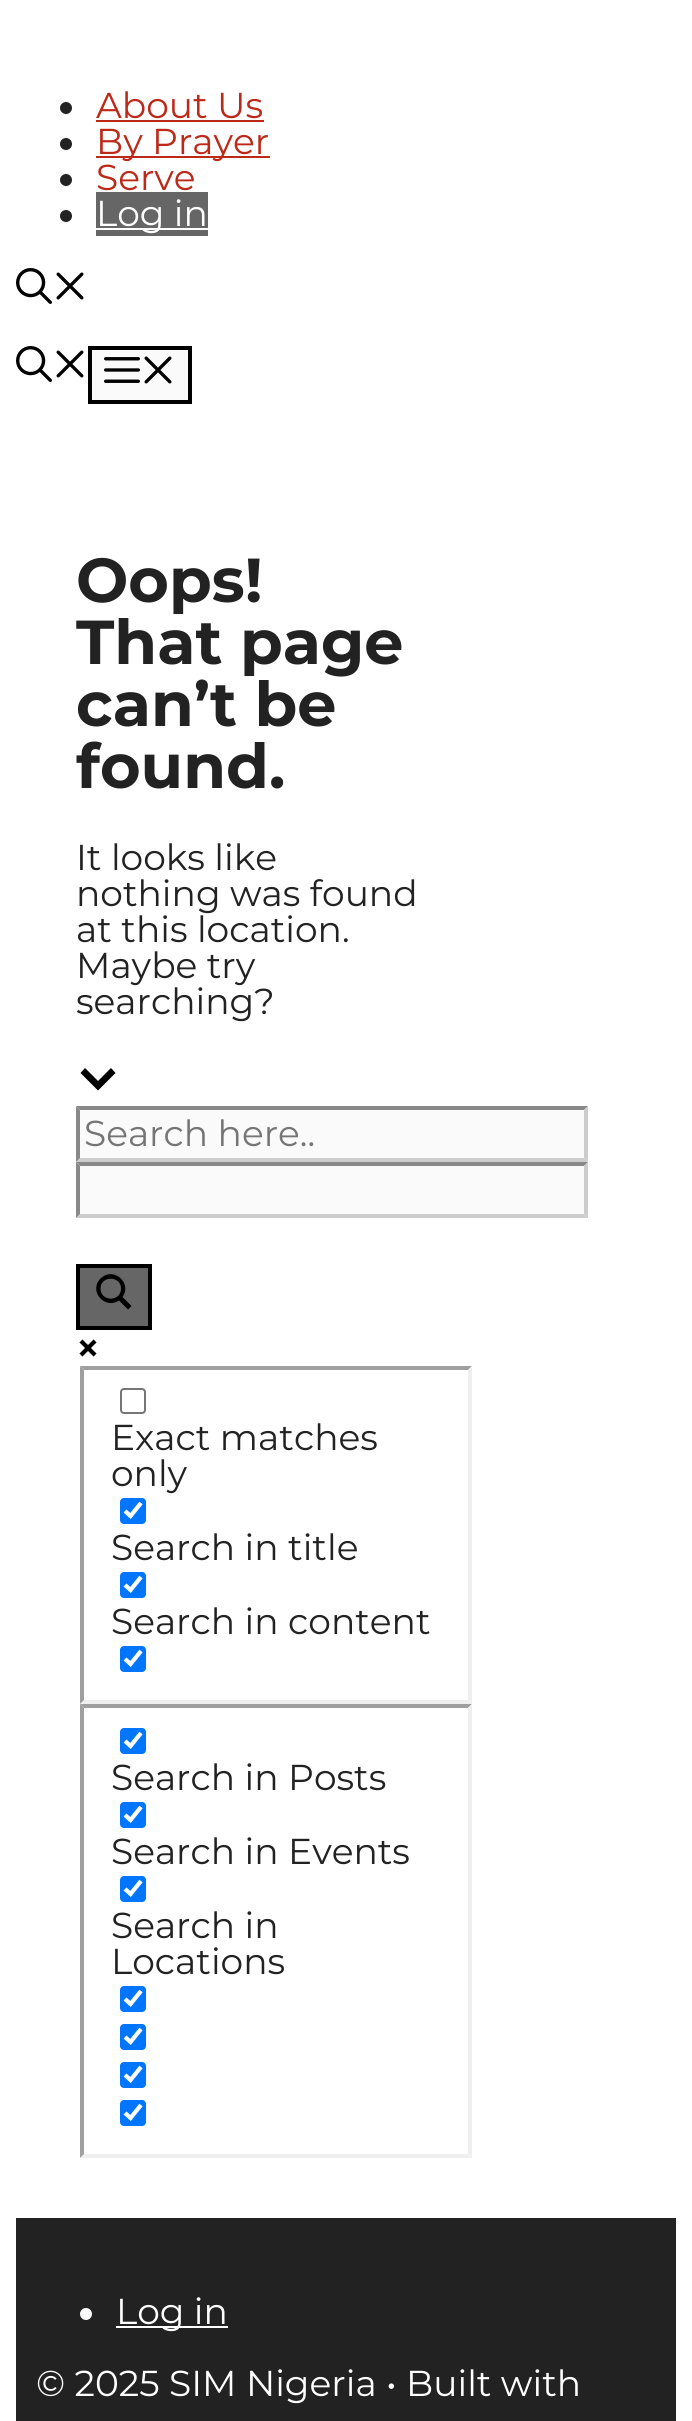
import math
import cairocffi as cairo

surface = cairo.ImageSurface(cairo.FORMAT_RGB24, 692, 2421)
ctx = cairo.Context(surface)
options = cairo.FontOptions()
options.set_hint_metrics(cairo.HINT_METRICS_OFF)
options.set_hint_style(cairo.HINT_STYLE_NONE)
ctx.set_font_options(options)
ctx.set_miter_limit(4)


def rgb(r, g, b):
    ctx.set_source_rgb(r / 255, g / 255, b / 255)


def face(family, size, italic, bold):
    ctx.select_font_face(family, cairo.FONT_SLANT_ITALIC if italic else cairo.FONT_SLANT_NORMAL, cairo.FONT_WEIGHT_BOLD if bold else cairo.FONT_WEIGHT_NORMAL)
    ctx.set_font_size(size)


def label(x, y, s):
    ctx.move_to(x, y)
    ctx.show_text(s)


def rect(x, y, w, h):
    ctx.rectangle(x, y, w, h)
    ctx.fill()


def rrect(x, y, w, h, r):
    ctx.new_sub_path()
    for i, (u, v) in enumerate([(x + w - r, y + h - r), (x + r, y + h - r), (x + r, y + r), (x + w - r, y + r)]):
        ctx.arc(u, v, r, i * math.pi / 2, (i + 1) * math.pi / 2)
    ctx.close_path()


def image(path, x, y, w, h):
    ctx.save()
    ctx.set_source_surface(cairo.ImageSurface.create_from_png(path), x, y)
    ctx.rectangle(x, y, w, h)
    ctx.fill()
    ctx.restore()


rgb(255, 255, 255)
ctx.paint()
rgb(34, 34, 34)
ctx.arc(66, 108, 6, 0, 2 * math.pi)
ctx.fill()
face('Montserrat', 36, 0, 0)
rgb(189, 41, 25)
label(96, 118, 'About Us')
rect(96, 120, 168, 2)
rgb(34, 34, 34)
ctx.new_path()
ctx.arc(66, 144, 6, 0, 2 * math.pi)
ctx.fill()
rgb(189, 41, 25)
rect(96, 156, 174, 2)
label(96, 154, 'By Prayer')
rgb(34, 34, 34)
ctx.new_path()
ctx.arc(66, 180, 6, 0, 2 * math.pi)
ctx.fill()
rgb(189, 41, 25)
label(96, 190, 'Serve')
rgb(34, 34, 34)
ctx.new_path()
ctx.arc(66, 216, 6, 0, 2 * math.pi)
ctx.fill()
rgb(102, 102, 102)
rect(96, 192, 112, 44)
rgb(255, 255, 255)
rect(96, 228, 112, 2)
label(96, 226, 'Log in')
image('image0.png', 16, 268, 36, 36)
image('image1.png', 56, 272, 28, 28)
image('image0.png', 16, 346, 36, 36)
image('image1.png', 56, 350, 28, 28)
rgb(250, 250, 250)
ctx.rectangle(90, 348, 100, 54)
ctx.fill_preserve()
rgb(0, 0, 0)
ctx.set_line_width(4)
ctx.stroke()
image('image2.png', 104, 357, 36, 26)
image('image3.png', 144, 356, 28, 28)
face('Montserrat', 62, 0, 1)
rgb(34, 34, 34)
label(76, 602, 'Oops!')
label(76, 664, 'That page')
label(76, 726, 'can’t be')
label(76, 788, 'found.')
face('Montserrat', 36, 0, 0)
label(76, 870, 'It looks like')
label(76, 906, 'nothing was found')
label(76, 942, 'at this location.')
label(76, 978, 'Maybe try')
label(76, 1014, 'searching?')
rgb(0, 0, 0)
ctx.new_path()
ctx.move_to(111, 1068)
ctx.line_to(115.5, 1073)
ctx.line_to(98, 1090.5)
ctx.line_to(80.5, 1073)
ctx.line_to(85, 1068)
ctx.line_to(98, 1081)
ctx.close_path()
ctx.fill()
rgb(250, 250, 250)
rect(76, 1106, 512, 112)
rgb(136, 136, 136)
ctx.new_path()
ctx.move_to(76, 1106)
ctx.line_to(588, 1106)
ctx.line_to(584, 1110)
ctx.line_to(80, 1110)
ctx.close_path()
ctx.fill()
rgb(204, 204, 204)
ctx.new_path()
ctx.move_to(588, 1106)
ctx.line_to(588, 1162)
ctx.line_to(584, 1158)
ctx.line_to(584, 1110)
ctx.close_path()
ctx.fill()
ctx.new_path()
ctx.move_to(588, 1162)
ctx.line_to(76, 1162)
ctx.line_to(80, 1158)
ctx.line_to(584, 1158)
ctx.close_path()
ctx.fill()
rgb(136, 136, 136)
ctx.new_path()
ctx.move_to(76, 1162)
ctx.line_to(76, 1106)
ctx.line_to(80, 1110)
ctx.line_to(80, 1158)
ctx.close_path()
ctx.fill()
rgb(117, 117, 117)
label(84, 1146, 'Search here..')
rgb(136, 136, 136)
ctx.new_path()
ctx.move_to(76, 1162)
ctx.line_to(588, 1162)
ctx.line_to(584, 1166)
ctx.line_to(80, 1166)
ctx.close_path()
ctx.fill()
rgb(204, 204, 204)
ctx.new_path()
ctx.move_to(588, 1162)
ctx.line_to(588, 1218)
ctx.line_to(584, 1214)
ctx.line_to(584, 1166)
ctx.close_path()
ctx.fill()
ctx.new_path()
ctx.move_to(588, 1218)
ctx.line_to(76, 1218)
ctx.line_to(80, 1214)
ctx.line_to(584, 1214)
ctx.close_path()
ctx.fill()
rgb(136, 136, 136)
ctx.new_path()
ctx.move_to(76, 1218)
ctx.line_to(76, 1162)
ctx.line_to(80, 1166)
ctx.line_to(80, 1214)
ctx.close_path()
ctx.fill()
rgb(102, 102, 102)
ctx.rectangle(78, 1266, 72, 62)
ctx.fill_preserve()
rgb(0, 0, 0)
ctx.stroke()
ctx.new_path()
ctx.move_to(131.5, 1306)
ctx.line_to(122.5, 1297)
ctx.curve_to(132.5, 1283, 113.5, 1266, 100.5, 1278.5)
ctx.curve_to(88, 1291, 105, 1310, 119, 1300.5)
ctx.line_to(128, 1309.5)
ctx.close_path()
ctx.move_to(100.5, 1288.5)
ctx.curve_to(100.5, 1275.5, 121, 1275.5, 121, 1288.5)
ctx.curve_to(121, 1302, 100.5, 1302, 100.5, 1288.5)
ctx.close_path()
ctx.fill()
image('image4.png', 79, 1339, 18, 18)
rgb(159, 159, 159)
ctx.new_path()
ctx.move_to(80, 1366)
ctx.line_to(472, 1366)
ctx.line_to(468, 1370)
ctx.line_to(84, 1370)
ctx.close_path()
ctx.fill()
rgb(239, 239, 239)
ctx.new_path()
ctx.move_to(472, 1366)
ctx.line_to(472, 1704)
ctx.line_to(468, 1700)
ctx.line_to(468, 1370)
ctx.close_path()
ctx.fill()
ctx.new_path()
ctx.move_to(472, 1704)
ctx.line_to(80, 1704)
ctx.line_to(84, 1700)
ctx.line_to(468, 1700)
ctx.close_path()
ctx.fill()
rgb(159, 159, 159)
ctx.new_path()
ctx.move_to(80, 1704)
ctx.line_to(80, 1366)
ctx.line_to(84, 1370)
ctx.line_to(84, 1700)
ctx.close_path()
ctx.fill()
rrect(121, 1389, 24, 24, 3)
rgb(118, 118, 118)
ctx.set_line_width(2)
ctx.stroke()
rgb(34, 34, 34)
label(111, 1450, 'Exact matches')
label(111, 1486, 'only')
rgb(0, 117, 255)
rrect(120, 1498, 26, 26, 4)
ctx.fill()
ctx.new_path()
ctx.move_to(125, 1511)
ctx.line_to(130.5, 1516)
ctx.line_to(141, 1503)
rgb(255, 255, 255)
ctx.set_line_width(4.2)
ctx.stroke()
rgb(34, 34, 34)
label(111, 1560, 'Search in title')
rgb(0, 117, 255)
rrect(120, 1572, 26, 26, 4)
ctx.fill()
ctx.new_path()
ctx.move_to(125, 1585)
ctx.line_to(130.5, 1590)
ctx.line_to(141, 1577)
rgb(255, 255, 255)
ctx.stroke()
rgb(34, 34, 34)
label(111, 1634, 'Search in content')
rgb(0, 117, 255)
rrect(120, 1646, 26, 26, 4)
ctx.fill()
ctx.new_path()
ctx.move_to(125, 1659)
ctx.line_to(130.5, 1664)
ctx.line_to(141, 1651)
rgb(255, 255, 255)
ctx.stroke()
rgb(159, 159, 159)
ctx.new_path()
ctx.move_to(80, 1704)
ctx.line_to(472, 1704)
ctx.line_to(468, 1708)
ctx.line_to(84, 1708)
ctx.close_path()
ctx.fill()
rgb(239, 239, 239)
ctx.new_path()
ctx.move_to(472, 1704)
ctx.line_to(472, 2158)
ctx.line_to(468, 2154)
ctx.line_to(468, 1708)
ctx.close_path()
ctx.fill()
ctx.new_path()
ctx.move_to(472, 2158)
ctx.line_to(80, 2158)
ctx.line_to(84, 2154)
ctx.line_to(468, 2154)
ctx.close_path()
ctx.fill()
rgb(159, 159, 159)
ctx.new_path()
ctx.move_to(80, 2158)
ctx.line_to(80, 1704)
ctx.line_to(84, 1708)
ctx.line_to(84, 2154)
ctx.close_path()
ctx.fill()
rgb(0, 117, 255)
rrect(120, 1728, 26, 26, 4)
ctx.fill()
ctx.new_path()
ctx.move_to(125, 1741)
ctx.line_to(130.5, 1746)
ctx.line_to(141, 1733)
rgb(255, 255, 255)
ctx.stroke()
rgb(34, 34, 34)
label(111, 1790, 'Search in Posts')
rgb(0, 117, 255)
rrect(120, 1802, 26, 26, 4)
ctx.fill()
ctx.new_path()
ctx.move_to(125, 1815)
ctx.line_to(130.5, 1820)
ctx.line_to(141, 1807)
rgb(255, 255, 255)
ctx.stroke()
rgb(34, 34, 34)
label(111, 1864, 'Search in Events')
rgb(0, 117, 255)
rrect(120, 1876, 26, 26, 4)
ctx.fill()
ctx.new_path()
ctx.move_to(125, 1889)
ctx.line_to(130.5, 1894)
ctx.line_to(141, 1881)
rgb(255, 255, 255)
ctx.stroke()
rgb(34, 34, 34)
label(111, 1938, 'Search in')
label(111, 1974, 'Locations')
rgb(0, 117, 255)
rrect(120, 1986, 26, 26, 4)
ctx.fill()
ctx.new_path()
ctx.move_to(125, 1999)
ctx.line_to(130.5, 2004)
ctx.line_to(141, 1991)
rgb(255, 255, 255)
ctx.stroke()
rgb(0, 117, 255)
rrect(120, 2024, 26, 26, 4)
ctx.fill()
ctx.new_path()
ctx.move_to(125, 2037)
ctx.line_to(130.5, 2042)
ctx.line_to(141, 2029)
rgb(255, 255, 255)
ctx.stroke()
rgb(0, 117, 255)
rrect(120, 2062, 26, 26, 4)
ctx.fill()
ctx.new_path()
ctx.move_to(125, 2075)
ctx.line_to(130.5, 2080)
ctx.line_to(141, 2067)
rgb(255, 255, 255)
ctx.stroke()
rgb(0, 117, 255)
rrect(120, 2100, 26, 26, 4)
ctx.fill()
ctx.new_path()
ctx.move_to(125, 2113)
ctx.line_to(130.5, 2118)
ctx.line_to(141, 2105)
rgb(255, 255, 255)
ctx.stroke()
rgb(34, 34, 34)
rect(16, 2218, 660, 203)
rgb(255, 255, 255)
ctx.arc(86, 2314, 6, 0, 2 * math.pi)
ctx.fill()
rect(116, 2326, 112, 2)
label(116, 2324, 'Log in')
label(36, 2396, '© 2025 SIM Nigeria • Built with')
surface.write_to_png('render.png')
